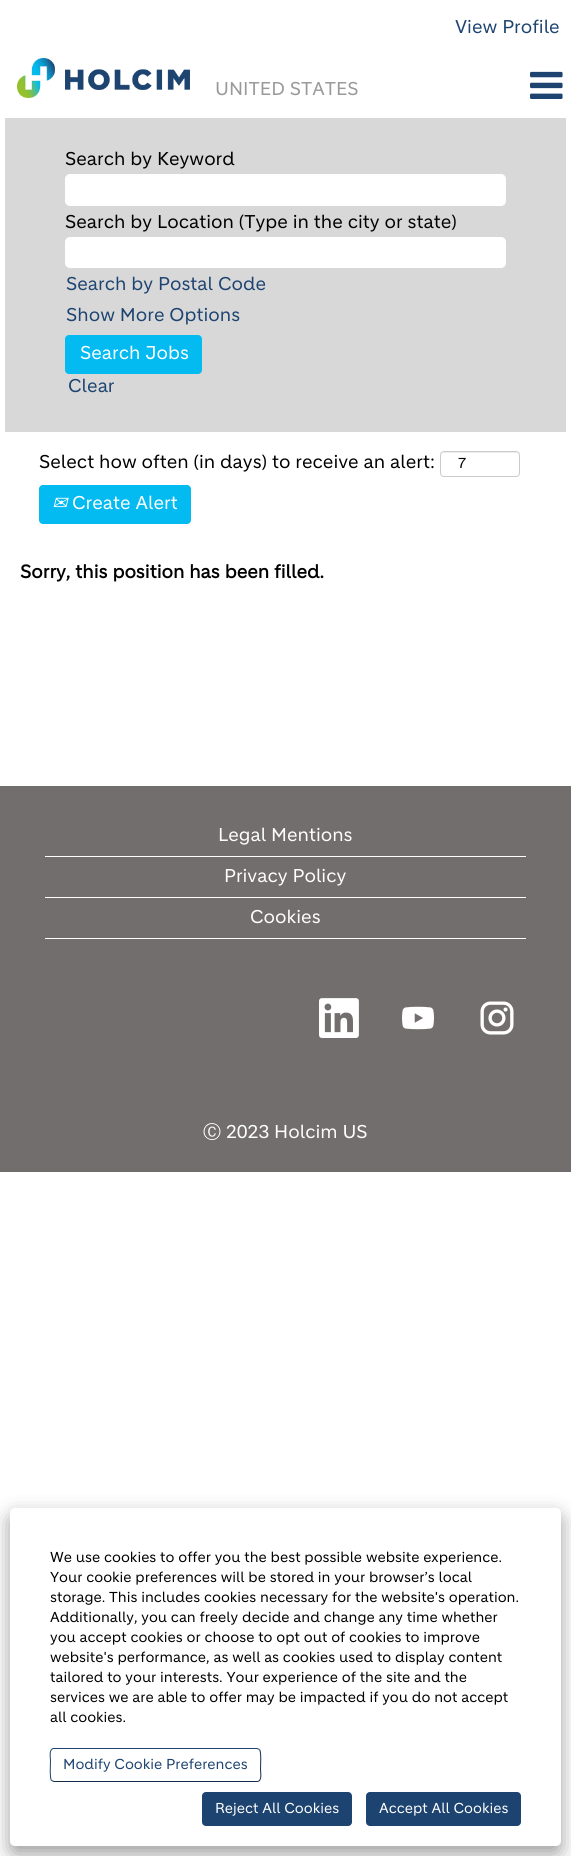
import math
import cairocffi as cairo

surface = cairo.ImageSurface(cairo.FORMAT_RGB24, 571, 1856)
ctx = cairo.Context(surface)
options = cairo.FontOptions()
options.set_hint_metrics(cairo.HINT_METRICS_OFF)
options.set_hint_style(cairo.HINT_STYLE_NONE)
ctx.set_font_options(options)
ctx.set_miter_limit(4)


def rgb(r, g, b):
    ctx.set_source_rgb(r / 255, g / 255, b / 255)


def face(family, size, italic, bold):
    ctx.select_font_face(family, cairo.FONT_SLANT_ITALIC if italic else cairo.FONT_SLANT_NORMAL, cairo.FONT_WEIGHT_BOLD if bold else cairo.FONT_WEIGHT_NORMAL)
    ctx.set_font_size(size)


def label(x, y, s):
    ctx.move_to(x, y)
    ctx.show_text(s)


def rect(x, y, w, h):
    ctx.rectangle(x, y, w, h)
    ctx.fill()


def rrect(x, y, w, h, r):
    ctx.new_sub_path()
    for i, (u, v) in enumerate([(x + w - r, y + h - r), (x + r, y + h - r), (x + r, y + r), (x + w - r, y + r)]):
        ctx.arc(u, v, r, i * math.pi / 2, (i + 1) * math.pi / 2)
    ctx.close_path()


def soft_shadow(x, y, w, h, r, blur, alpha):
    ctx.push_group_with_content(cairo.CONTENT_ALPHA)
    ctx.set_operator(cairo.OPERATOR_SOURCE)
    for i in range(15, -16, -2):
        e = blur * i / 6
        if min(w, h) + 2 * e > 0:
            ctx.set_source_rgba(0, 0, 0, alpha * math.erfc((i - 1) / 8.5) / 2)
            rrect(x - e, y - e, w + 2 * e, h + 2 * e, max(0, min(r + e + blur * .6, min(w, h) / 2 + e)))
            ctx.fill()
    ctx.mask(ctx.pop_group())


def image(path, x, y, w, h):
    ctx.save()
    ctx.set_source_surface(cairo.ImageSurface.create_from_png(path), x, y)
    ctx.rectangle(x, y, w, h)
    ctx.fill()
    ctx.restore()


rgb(255, 255, 255)
ctx.paint()
face('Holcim', 18, 0, 0)
rgb(29, 67, 112)
label(455, 33, 'View Profile')
image('image0.png', 17, 58, 173, 40)
rgb(153, 153, 153)
label(215, 95, 'UNITED STATES')
image('image1.png', 530, 71, 33, 28)
rgb(216, 216, 216)
rect(5, 118, 561, 314)
rgb(0, 0, 0)
label(65, 165, 'Search by Keyword')
rgb(255, 255, 255)
rrect(66, 175, 439, 30, 4)
ctx.fill_preserve()
ctx.stroke()
rgb(0, 0, 0)
label(65, 228, 'Search by Location (Type in the city or state)')
rgb(255, 255, 255)
rrect(66, 238, 439, 29, 4)
ctx.fill_preserve()
ctx.stroke()
rgb(29, 67, 112)
label(66, 290, 'Search by Postal Code')
label(66, 321, 'Show More Options')
rgb(4, 187, 241)
rrect(65.5, 335.5, 136, 38, 3.5)
ctx.fill_preserve()
ctx.set_line_width(1)
ctx.stroke()
rgb(255, 255, 255)
label(80, 359, 'Search Jobs')
rgb(29, 67, 112)
label(68, 392, 'Clear')
rgb(0, 0, 0)
label(39, 468, 'Select how often (in days) to receive an alert:')
rgb(236, 236, 236)
ctx.new_path()
ctx.move_to(444, 453)
ctx.line_to(516, 453)
ctx.curve_to(518, 453, 519, 454, 519, 456)
ctx.curve_to(519, 449, 508, 452, 504, 452)
ctx.line_to(456, 452)
ctx.curve_to(452, 452, 441, 449, 441, 456)
ctx.curve_to(441, 454, 442, 453, 444, 453)
ctx.close_path()
ctx.fill()
rrect(440.5, 451.5, 79, 25, 3.5)
rgb(204, 204, 204)
ctx.stroke()
face('Holcim', 14, 0, 0)
rgb(0, 0, 0)
label(458, 468, '7')
rgb(4, 187, 241)
rrect(39.5, 485.5, 151, 38, 3.5)
ctx.fill_preserve()
ctx.stroke()
face('DejaVu Sans', 18, 1, 0)
rgb(255, 255, 255)
label(52, 509, '✉')
face('Holcim', 18, 0, 0)
label(72, 509, 'Create Alert')
face('Holcim', 18, 0, 1)
rgb(0, 0, 0)
label(20, 578, 'Sorry, this position has been filled.')
rgb(115, 110, 110)
rect(0, 786, 571, 386)
rgb(255, 255, 255)
rect(45, 856, 481, 1)
face('Holcim', 18, 0, 0)
label(218, 841, 'Legal Mentions')
rect(45, 897, 481, 1)
label(224, 882, 'Privacy Policy')
rect(45, 938, 481, 1)
label(250, 923, 'Cookies')
image('image2.png', 319, 998, 40, 40)
image('image3.png', 402, 1006, 32, 24)
image('image4.png', 480, 1001, 34, 34)
face('WenQuanYi Zen Hei Medium', 18, 0, 0)
label(203, 1138, 'Ⓒ')
face('Holcim', 18, 0, 0)
label(226, 1138, '2023 Holcim US')
rgb(0, 0, 0)
soft_shadow(10, 1516, 551, 338, 5, 10, 0.39)
rgb(255, 255, 255)
rrect(10, 1508, 551, 338, 5)
ctx.fill()
face('Holcim', 14, 0, 0)
rgb(0, 0, 0)
label(50, 1562, 'We use cookies to offer you the best possible website experience.')
label(50, 1582, 'Your cookie preferences will be stored in your browser’s local')
label(50, 1602, 'storage. This includes cookies necessary for the website\'s operation.')
label(50, 1622, 'Additionally, you can freely decide and change any time whether')
label(50, 1642, 'you accept cookies or choose to opt out of cookies to improve')
label(50, 1662, 'website\'s performance, as well as cookies used to display content')
label(50, 1682, 'tailored to your interests. Your experience of the site and the')
label(50, 1702, 'services we are able to offer may be impacted if you do not accept')
label(50, 1722, 'all cookies.')
ctx.new_path()
ctx.move_to(259.5, 1749.5)
ctx.curve_to(261.5, 1752, 260.5, 1766, 260.5, 1769.5)
ctx.curve_to(260.5, 1772, 262.5, 1781.5, 257, 1781.5)
ctx.line_to(54, 1781.5)
ctx.line_to(51.5, 1780.5)
rgb(19, 45, 75)
ctx.stroke()
ctx.new_path()
ctx.move_to(51.5, 1780.5)
ctx.curve_to(49.5, 1778, 50.5, 1764, 50.5, 1760.5)
ctx.curve_to(50.5, 1758, 48.5, 1748.5, 54, 1748.5)
ctx.line_to(257, 1748.5)
ctx.line_to(259.5, 1749.5)
rgb(29, 67, 112)
ctx.stroke()
label(63, 1769, 'Modify Cookie Preferences')
rrect(202, 1792, 150, 34, 4)
ctx.fill()
rgb(255, 255, 255)
label(215, 1813, 'Reject All Cookies')
rgb(29, 67, 112)
rrect(366, 1792, 155, 34, 4)
ctx.fill()
rgb(255, 255, 255)
label(379, 1813, 'Accept All Cookies')
surface.write_to_png('render.png')
